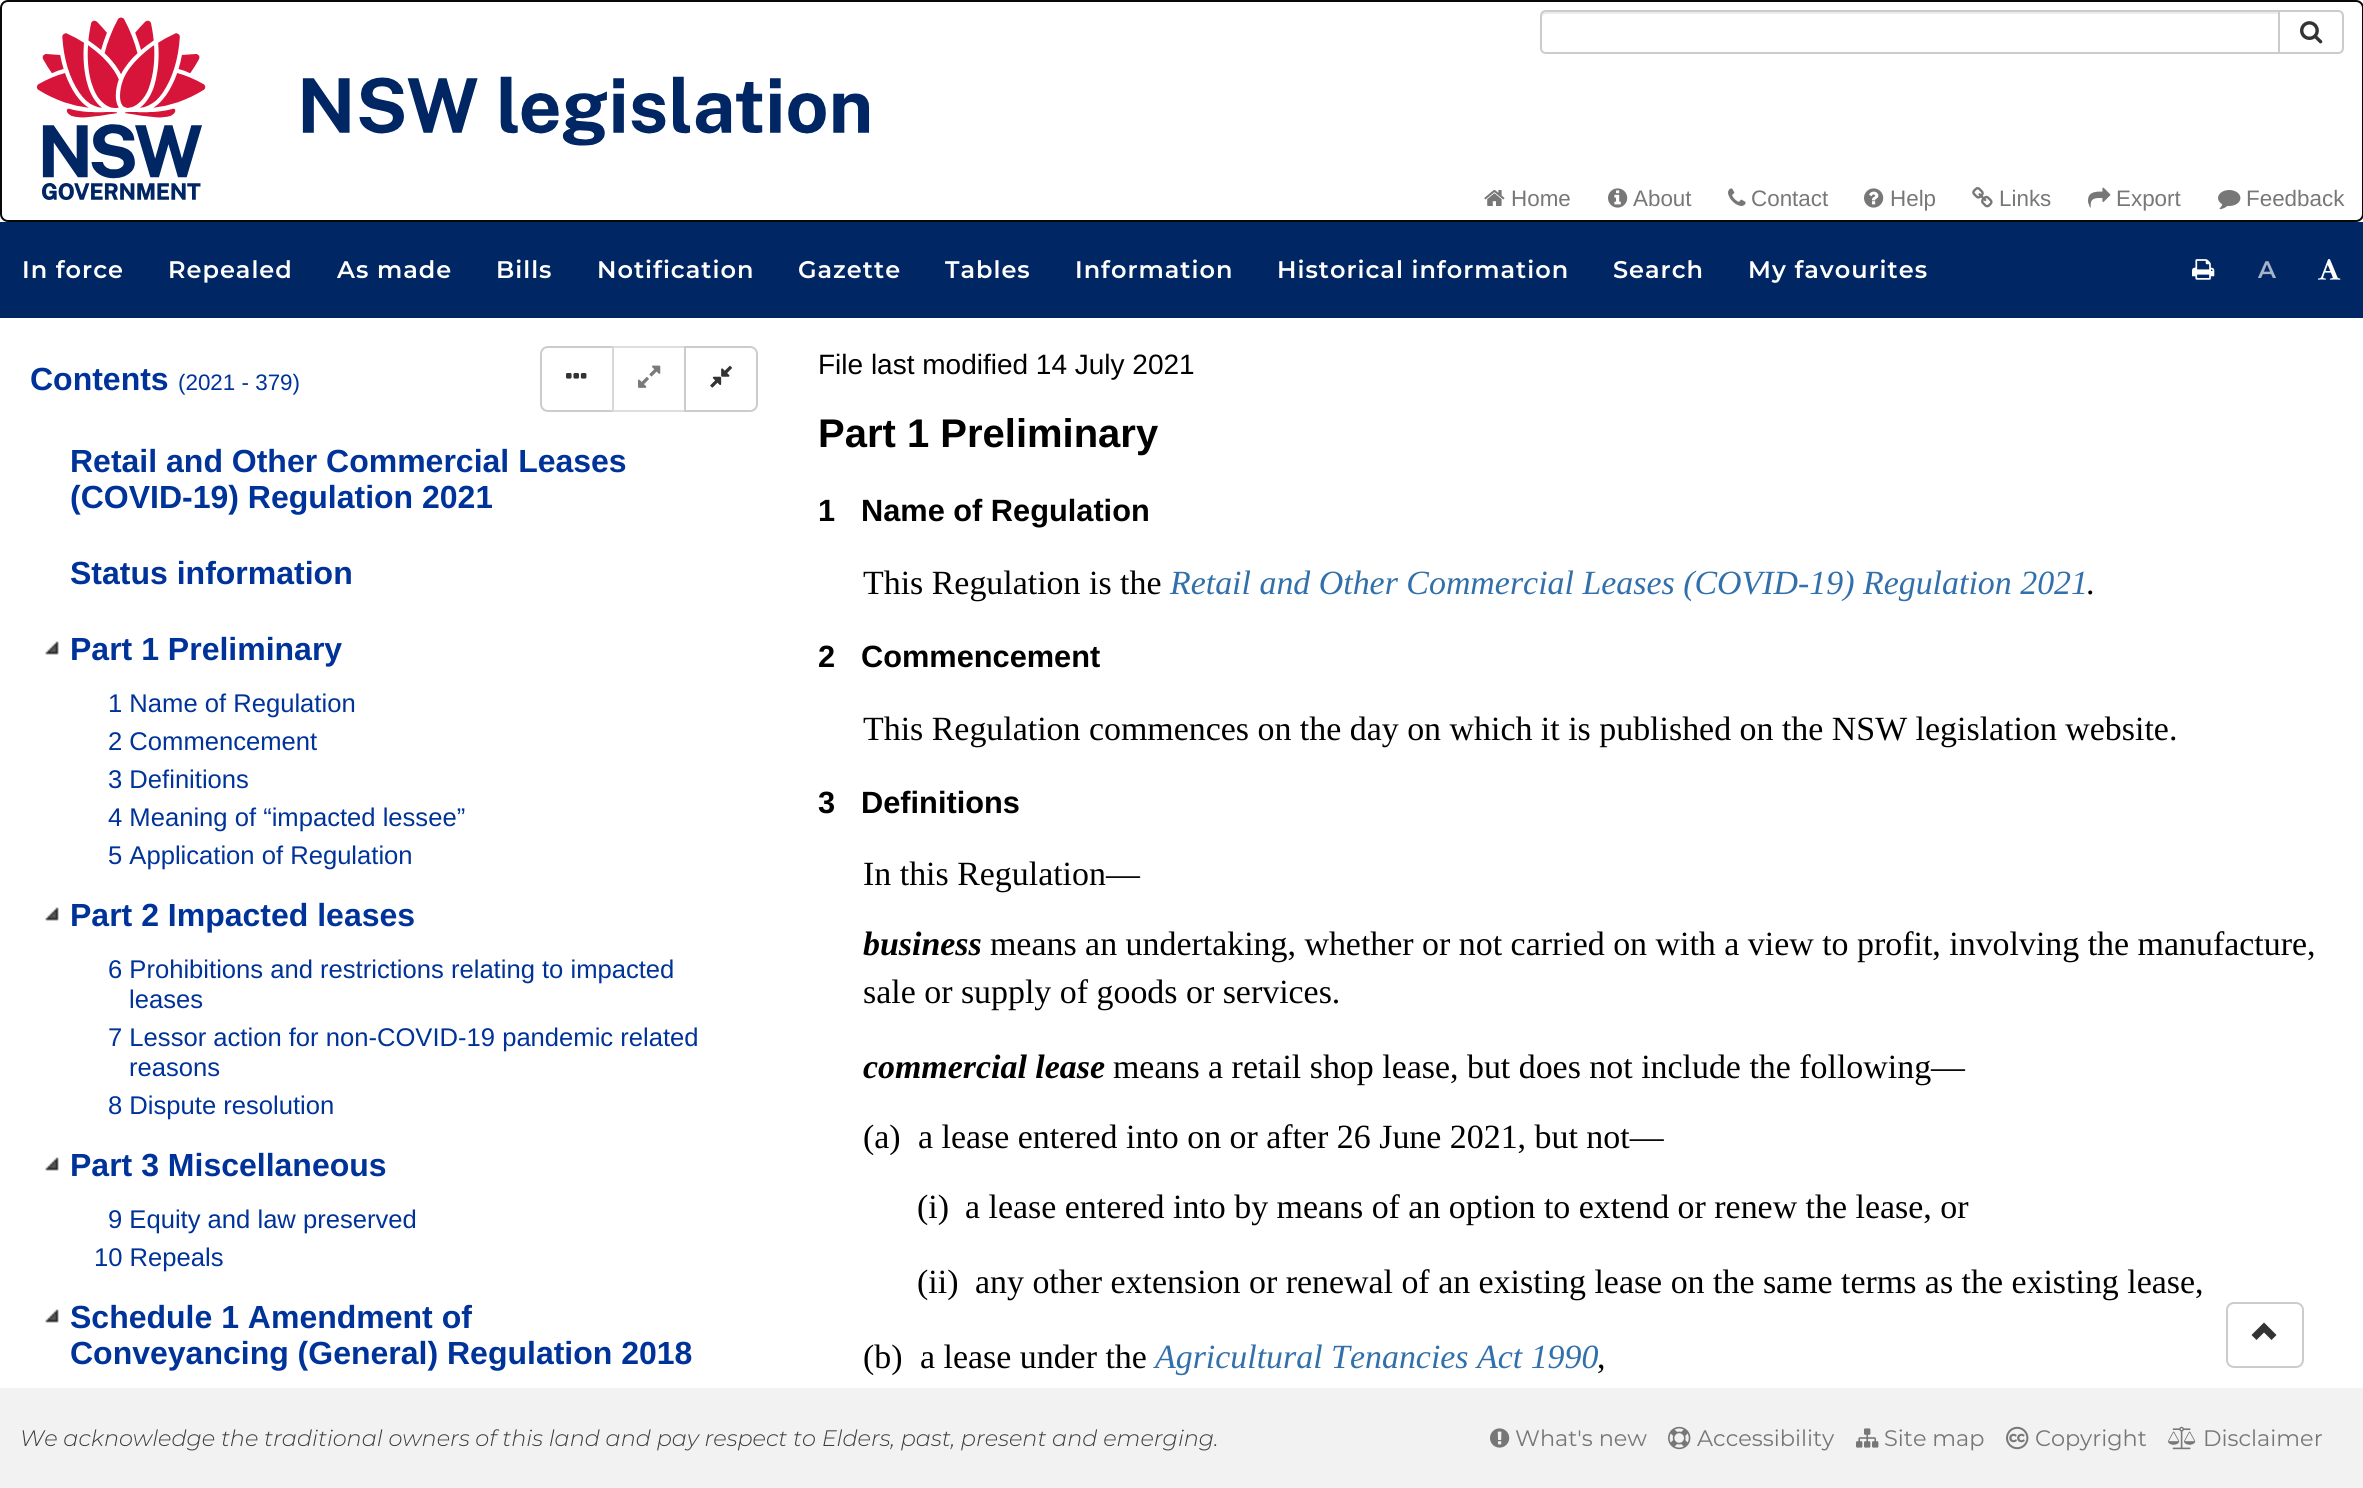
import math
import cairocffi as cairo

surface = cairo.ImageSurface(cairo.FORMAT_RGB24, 2363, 1488)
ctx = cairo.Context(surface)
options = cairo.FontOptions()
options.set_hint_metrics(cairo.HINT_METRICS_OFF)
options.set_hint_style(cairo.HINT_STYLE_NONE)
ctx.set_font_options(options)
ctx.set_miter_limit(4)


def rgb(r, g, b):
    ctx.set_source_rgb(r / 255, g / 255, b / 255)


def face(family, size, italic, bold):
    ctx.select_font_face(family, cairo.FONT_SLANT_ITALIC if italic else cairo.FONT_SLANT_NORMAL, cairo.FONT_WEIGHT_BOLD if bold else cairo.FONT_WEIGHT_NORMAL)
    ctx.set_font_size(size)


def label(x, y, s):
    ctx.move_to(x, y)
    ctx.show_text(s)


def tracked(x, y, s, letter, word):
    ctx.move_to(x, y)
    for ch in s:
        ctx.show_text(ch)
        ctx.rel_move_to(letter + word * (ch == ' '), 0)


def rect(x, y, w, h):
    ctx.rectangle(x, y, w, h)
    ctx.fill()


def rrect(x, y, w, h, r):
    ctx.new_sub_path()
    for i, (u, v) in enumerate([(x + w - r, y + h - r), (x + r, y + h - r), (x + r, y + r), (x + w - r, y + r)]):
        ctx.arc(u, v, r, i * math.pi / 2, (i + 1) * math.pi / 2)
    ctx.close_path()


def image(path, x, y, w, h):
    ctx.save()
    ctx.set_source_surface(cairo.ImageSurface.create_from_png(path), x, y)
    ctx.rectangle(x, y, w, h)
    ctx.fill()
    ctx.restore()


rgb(255, 255, 255)
ctx.paint()
rrect(1, 1, 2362, 220, 7)
rgb(8, 8, 8)
ctx.stroke()
image('image0.png', 36, 17, 834, 183)
ctx.new_path()
ctx.move_to(2279, 11)
ctx.line_to(2338, 11)
ctx.curve_to(2341, 11, 2343, 13, 2343, 16)
ctx.line_to(2343, 48)
ctx.curve_to(2343, 51, 2341, 53, 2338, 53)
ctx.line_to(2279, 53)
ctx.close_path()
rgb(204, 204, 204)
ctx.stroke()
rgb(255, 255, 255)
ctx.new_path()
ctx.move_to(1546, 10)
ctx.line_to(2280, 10)
ctx.line_to(2280, 54)
ctx.line_to(1546, 54)
ctx.curve_to(1542.5, 54, 1540, 51.5, 1540, 48)
ctx.line_to(1540, 16)
ctx.curve_to(1540, 12.5, 1542.5, 10, 1546, 10)
ctx.close_path()
ctx.fill()
rgb(236, 236, 236)
ctx.new_path()
ctx.move_to(1546, 14)
ctx.line_to(2278, 14)
ctx.line_to(2278, 12)
ctx.line_to(1546, 12)
ctx.curve_to(1542, 12, 1542, 15, 1542, 18)
ctx.curve_to(1542, 16, 1544, 14, 1546, 14)
ctx.close_path()
ctx.fill()
ctx.new_path()
ctx.move_to(1546, 11)
ctx.line_to(2279, 11)
ctx.line_to(2279, 53)
ctx.line_to(1546, 53)
ctx.curve_to(1543, 53, 1541, 51, 1541, 48)
ctx.line_to(1541, 16)
ctx.curve_to(1541, 13, 1543, 11, 1546, 11)
ctx.close_path()
rgb(204, 204, 204)
ctx.stroke()
image('image1.png', 2300, 21, 23, 23)
image('image2.png', 1484, 190, 21, 16)
face('Liberation Sans', 22.4, 0, 0)
rgb(119, 119, 119)
label(1511, 206, 'Home')
image('image3.png', 1608, 188, 20, 20)
label(1633, 206, 'About')
image('image4.png', 1728, 188, 18, 18)
label(1751, 206, 'Contact')
image('image5.png', 1864, 188, 20, 20)
label(1890, 206, 'Help')
image('image6.png', 1972, 187, 21, 21)
label(1999, 206, 'Links')
image('image7.png', 2088, 187, 23, 21)
label(2116, 206, 'Export')
image('image8.png', 2218, 190, 23, 20)
label(2246, 206, 'Feedback')
rgb(0, 38, 100)
rect(0, 222, 2363, 96)
face('Montserrat SemiBold', 24, 0, 0)
rgb(255, 255, 255)
tracked(22, 278, 'In force', 1, 0)
tracked(168, 278, 'Repealed', 1, 0)
tracked(337, 278, 'As made', 1, 0)
tracked(496, 278, 'Bills', 1, 0)
tracked(597, 278, 'Notification', 1, 0)
tracked(798, 278, 'Gazette', 1, 0)
tracked(945, 278, 'Tables', 1, 0)
tracked(1075, 278, 'Information', 1, 0)
tracked(1277, 278, 'Historical information', 1, 0)
tracked(1613, 278, 'Search', 1, 0)
tracked(1748, 278, 'My favourites', 1, 0)
image('image9.png', 2192, 259, 23, 21)
rgb(166, 179, 201)
tracked(2258, 278, 'A', 1, 0)
image('image10.png', 2318, 259, 23, 21)
face('Liberation Sans', 32, 0, 1)
rgb(0, 51, 153)
label(30, 390, 'Contents')
face('Liberation Sans', 22.4, 0, 0)
label(178, 390, '(2021 - 379)')
ctx.new_path()
ctx.move_to(548, 347)
ctx.line_to(613, 347)
ctx.line_to(613, 411)
ctx.line_to(548, 411)
ctx.curve_to(544, 411, 541, 408, 541, 404)
ctx.line_to(541, 354)
ctx.curve_to(541, 350, 544, 347, 548, 347)
ctx.close_path()
rgb(204, 204, 204)
ctx.stroke()
image('image11.png', 566, 373, 21, 6)
ctx.set_source_rgba(1, 1, 1, 0.65)
rect(612, 346, 2, 66)
ctx.rectangle(613, 347, 72, 64)
ctx.set_source_rgba(0.8, 0.8, 0.8, 0.65)
ctx.stroke()
image('image12.png', 638, 365, 23, 23)
rgb(255, 255, 255)
ctx.new_path()
ctx.move_to(685, 347)
ctx.line_to(750, 347)
ctx.curve_to(754, 347, 757, 350, 757, 354)
ctx.line_to(757, 404)
ctx.curve_to(757, 408, 754, 411, 750, 411)
ctx.line_to(685, 411)
ctx.close_path()
ctx.fill_preserve()
rgb(204, 204, 204)
ctx.stroke()
image('image13.png', 710, 365, 22, 23)
face('Liberation Sans', 32, 0, 1)
rgb(0, 51, 153)
label(70, 472, 'Retail and Other Commercial Leases')
label(70, 508, '(COVID-19) Regulation 2021')
label(70, 584, 'Status information')
image('image14.png', 45, 641, 14, 14)
label(70, 660, 'Part 1 Preliminary')
face('Liberation Sans', 25.6, 0, 0)
label(108, 712, '1 Name of Regulation')
label(108, 750, '2 Commencement')
label(108, 788, '3 Definitions')
label(108, 826, '4 Meaning of “impacted lessee”')
label(108, 864, '5 Application of Regulation')
image('image14.png', 45, 907, 14, 14)
face('Liberation Sans', 32, 0, 1)
label(70, 926, 'Part 2 Impacted leases')
face('Liberation Sans', 25.6, 0, 0)
label(108, 978, '6 Prohibitions and restrictions relating to impacted')
label(129, 1008, 'leases')
label(108, 1046, '7 Lessor action for non-COVID-19 pandemic related')
label(129, 1076, 'reasons')
label(108, 1114, '8 Dispute resolution')
image('image14.png', 45, 1157, 14, 14)
face('Liberation Sans', 32, 0, 1)
label(70, 1176, 'Part 3 Miscellaneous')
face('Liberation Sans', 25.6, 0, 0)
label(108, 1228, '9 Equity and law preserved')
label(94, 1266, '10 Repeals')
image('image14.png', 45, 1309, 14, 14)
face('Liberation Sans', 32, 0, 1)
label(70, 1328, 'Schedule 1 Amendment of')
label(70, 1364, 'Conveyancing (General) Regulation 2018')
face('Liberation Sans', 28, 0, 0)
rgb(0, 0, 0)
label(818, 374, 'File last modified 14 July 2021')
face('Liberation Sans', 40, 0, 1)
label(818, 447, 'Part 1 Preliminary')
face('Liberation Sans', 30.75, 0, 1)
label(818, 521, '1')
label(861, 521, 'Name of Regulation')
face('Liberation Serif', 33.9, 0, 0)
label(863, 594, 'This Regulation is the')
face('Liberation Serif', 33.9, 1, 0)
rgb(49, 112, 171)
label(1170, 594, 'Retail and Other Commercial Leases (COVID-19) Regulation 2021')
face('Liberation Serif', 33.9, 0, 0)
rgb(0, 0, 0)
label(2086, 594, '.')
face('Liberation Sans', 30.75, 0, 1)
label(818, 667, '2')
label(861, 667, 'Commencement')
face('Liberation Serif', 33.9, 0, 0)
label(863, 740, 'This Regulation commences on the day on which it is published on the NSW legislation website.')
face('Liberation Sans', 30.75, 0, 1)
label(818, 813, '3')
label(861, 813, 'Definitions')
face('Liberation Serif', 33.9, 0, 0)
label(863, 885, 'In this Regulation—')
face('Liberation Serif', 33.9, 1, 1)
label(863, 955, 'business')
face('Liberation Serif', 33.9, 0, 0)
label(990, 955, 'means an undertaking, whether or not carried on with a view to profit, involving the manufacture,')
label(863, 1003, 'sale or supply of goods or services.')
face('Liberation Serif', 33.9, 1, 1)
label(863, 1078, 'commercial lease')
face('Liberation Serif', 33.9, 0, 0)
label(1113, 1078, 'means a retail shop lease, but does not include the following—')
label(863, 1148, '(a)')
label(918, 1148, 'a lease entered into on or after 26 June 2021, but not—')
label(917, 1218, '(i)')
label(965, 1218, 'a lease entered into by means of an option to extend or renew the lease, or')
label(917, 1293, '(ii)')
label(975, 1293, 'any other extension or renewal of an existing lease on the same terms as the existing lease,')
label(863, 1368, '(b)')
label(920, 1368, 'a lease under the')
face('Liberation Serif', 33.9, 1, 0)
rgb(49, 112, 171)
label(1155, 1368, 'Agricultural Tenancies Act 1990')
face('Liberation Serif', 33.9, 0, 0)
rgb(0, 0, 0)
label(1597, 1368, ',')
rrect(2227, 1303, 76, 64, 7)
rgb(204, 204, 204)
ctx.stroke()
rgb(51, 51, 51)
ctx.new_path()
ctx.move_to(2251.5, 1335)
ctx.line_to(2256.5, 1340)
ctx.line_to(2264, 1332.5)
ctx.line_to(2271.5, 1340)
ctx.line_to(2276.5, 1335)
ctx.line_to(2264, 1322.5)
ctx.close_path()
ctx.fill()
rgb(242, 242, 242)
rect(0, 1388, 2363, 100)
face('Montserrat Light', 22.4, 1, 0)
rgb(61, 61, 61)
label(20, 1446, 'We acknowledge the traditional owners of this land and pay respect to Elders, past, present and emerging.')
image('image15.png', 1490, 1428, 20, 20)
face('Montserrat', 22.4, 0, 0)
rgb(119, 119, 119)
label(1515, 1446, 'What\'s new')
image('image16.png', 1668, 1426, 23, 24)
label(1697, 1446, 'Accessibility')
image('image17.png', 1856, 1428, 23, 20)
label(1884, 1446, 'Site map')
image('image18.png', 2006, 1426, 23, 24)
label(2035, 1446, 'Copyright')
image('image19.png', 2168, 1426, 28, 24)
label(2203, 1446, 'Disclaimer')
surface.write_to_png('render.png')
